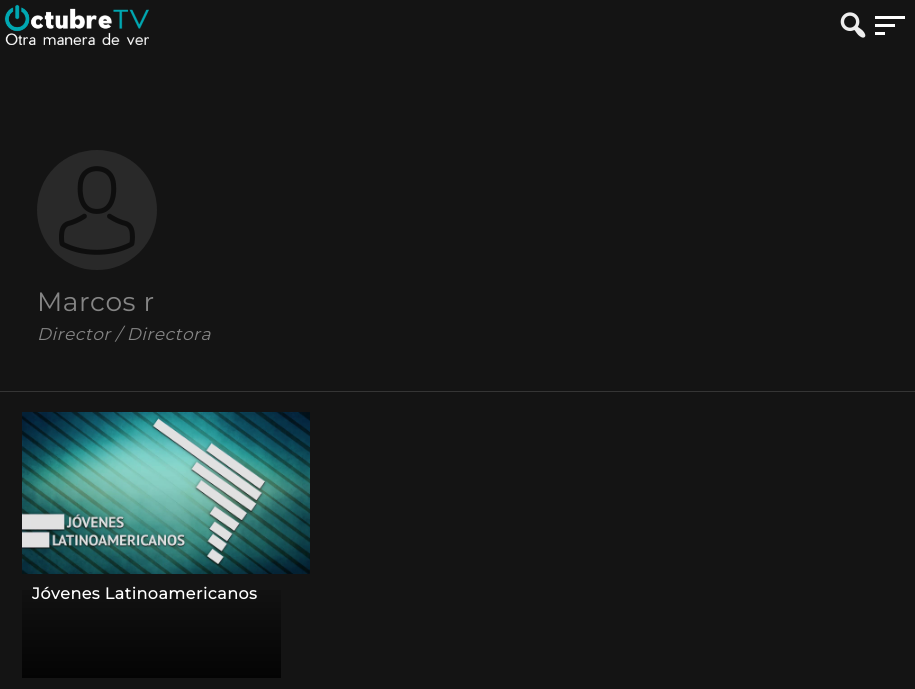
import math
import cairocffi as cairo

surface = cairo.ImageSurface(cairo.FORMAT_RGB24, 915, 689)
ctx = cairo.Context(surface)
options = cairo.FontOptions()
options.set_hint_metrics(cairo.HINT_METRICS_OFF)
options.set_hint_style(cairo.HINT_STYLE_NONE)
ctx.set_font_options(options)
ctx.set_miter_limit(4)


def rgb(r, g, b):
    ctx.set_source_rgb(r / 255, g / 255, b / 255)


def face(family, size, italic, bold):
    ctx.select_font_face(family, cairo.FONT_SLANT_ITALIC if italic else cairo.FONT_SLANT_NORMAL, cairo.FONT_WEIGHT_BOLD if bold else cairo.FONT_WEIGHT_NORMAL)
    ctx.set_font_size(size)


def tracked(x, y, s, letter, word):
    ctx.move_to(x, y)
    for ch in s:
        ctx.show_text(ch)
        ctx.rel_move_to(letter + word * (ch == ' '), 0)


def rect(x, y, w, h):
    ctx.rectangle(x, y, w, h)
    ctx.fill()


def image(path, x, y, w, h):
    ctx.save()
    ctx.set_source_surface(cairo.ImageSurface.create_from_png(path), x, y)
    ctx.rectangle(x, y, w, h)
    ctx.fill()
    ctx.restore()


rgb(20, 20, 20)
ctx.paint()
image('image0.png', 4, 4, 145, 41)
image('image1.png', 840, 12, 26, 26)
rgb(255, 255, 255)
rect(875, 24, 20, 3)
rect(875, 16, 30, 3)
rect(875, 32, 10, 3)
rgb(53, 53, 53)
rect(0, 391, 915, 1)
image('image2.png', 37, 150, 120, 120)
face('Montserrat Thin', 26.5, 0, 0)
rgb(133, 133, 133)
tracked(37, 311, 'Marcos r', 0.5, 0)
face('Montserrat Thin', 17, 1, 0)
tracked(37, 340, 'Director / Directora', 0.5, 0)
image('image3.png', 22, 412, 288, 162)
gradient = cairo.LinearGradient(152, 574, 152, 678)
gradient.add_color_stop_rgba(0, 0.078, 0.078, 0.078, 1)
gradient.add_color_stop_rgba(0.6, 0.039, 0.039, 0.039, 1)
gradient.add_color_stop_rgba(1, 0.016, 0.016, 0.016, 1)
ctx.set_source(gradient)
rect(22, 590, 259, 88)
face('Montserrat', 16, 0, 1)
rgb(255, 255, 255)
tracked(32, 599, 'Jóvenes Latinoamericanos', 0.5, 0)
surface.write_to_png('render.png')
